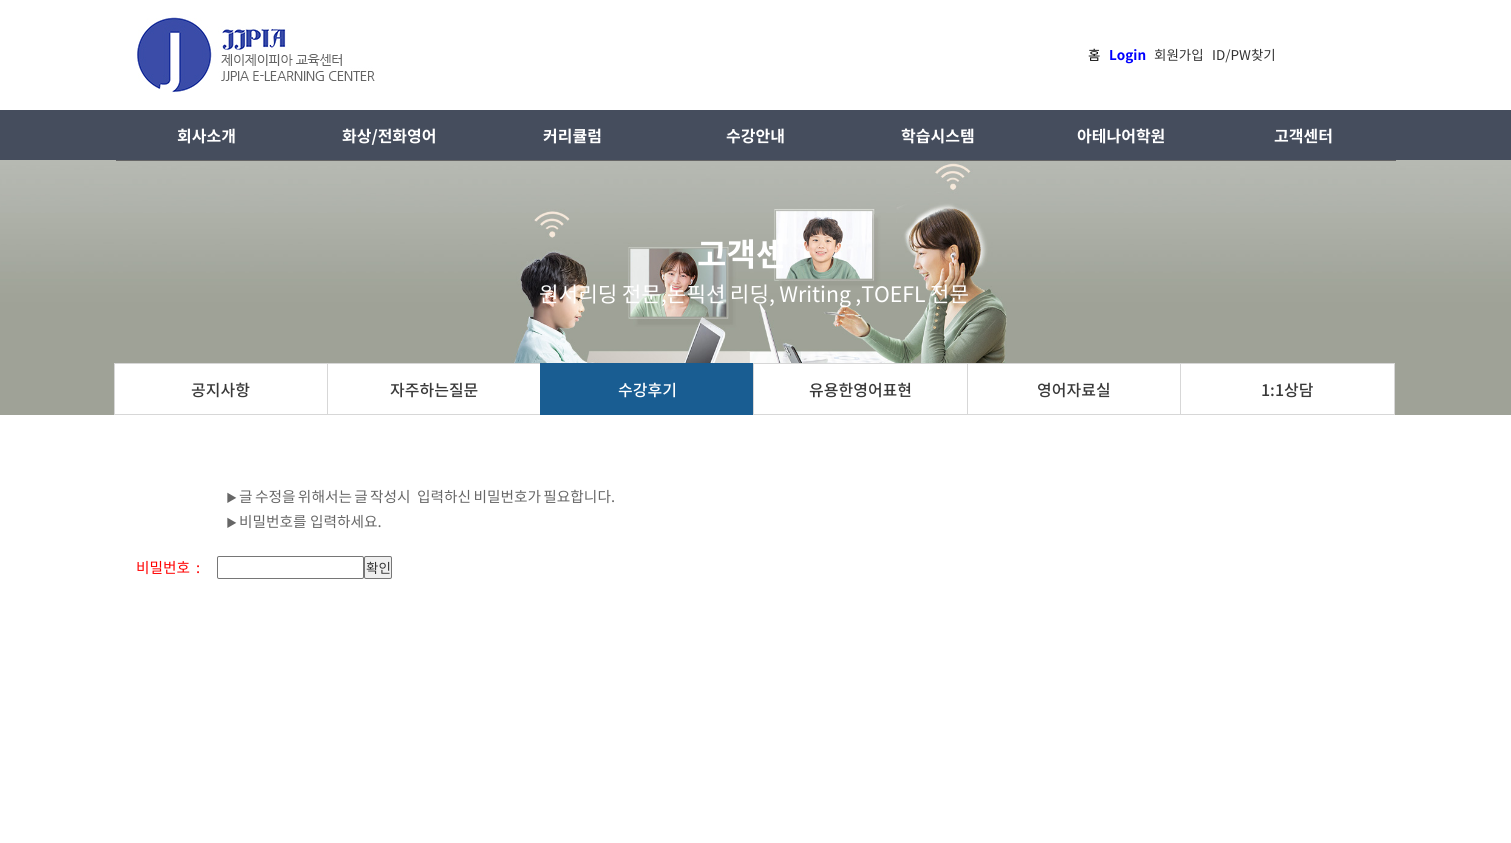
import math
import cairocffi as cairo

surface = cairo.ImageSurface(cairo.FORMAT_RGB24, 1511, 843)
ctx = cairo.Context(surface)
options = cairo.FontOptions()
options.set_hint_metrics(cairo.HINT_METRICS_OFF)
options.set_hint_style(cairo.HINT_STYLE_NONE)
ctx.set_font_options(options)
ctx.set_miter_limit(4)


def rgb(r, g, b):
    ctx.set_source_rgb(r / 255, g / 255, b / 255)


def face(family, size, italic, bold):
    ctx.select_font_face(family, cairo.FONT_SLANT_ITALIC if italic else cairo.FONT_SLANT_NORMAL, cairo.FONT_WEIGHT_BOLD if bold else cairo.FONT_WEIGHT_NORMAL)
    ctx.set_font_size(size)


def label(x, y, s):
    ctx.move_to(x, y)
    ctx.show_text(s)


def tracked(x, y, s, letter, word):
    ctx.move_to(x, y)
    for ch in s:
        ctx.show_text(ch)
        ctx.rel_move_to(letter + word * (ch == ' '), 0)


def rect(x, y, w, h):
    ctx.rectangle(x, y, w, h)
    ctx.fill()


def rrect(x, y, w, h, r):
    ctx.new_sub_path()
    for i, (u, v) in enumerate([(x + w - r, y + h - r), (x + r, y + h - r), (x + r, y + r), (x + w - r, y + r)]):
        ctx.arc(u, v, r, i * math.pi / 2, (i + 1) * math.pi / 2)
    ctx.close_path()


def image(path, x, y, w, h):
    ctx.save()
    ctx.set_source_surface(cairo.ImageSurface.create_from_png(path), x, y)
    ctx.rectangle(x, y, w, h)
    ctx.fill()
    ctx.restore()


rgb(255, 255, 255)
ctx.paint()
image('image0.png', 137, 17, 238, 76)
face('Noto Sans KR', 13.5, 0, 0)
rgb(0, 0, 0)
label(1088, 60, '홈')
face('Noto Sans KR', 13.5, 0, 1)
rgb(0, 0, 255)
label(1109, 60, 'Login')
face('Noto Sans KR', 13.5, 0, 0)
rgb(51, 51, 51)
label(1154, 60, '회원가입')
label(1212, 60, 'ID/PW찾기')
rgb(69, 77, 93)
rect(0, 110, 1511, 50)
image('image1.png', 0, 160, 1511, 255)
rgb(102, 102, 102)
rect(116, 160, 1280, 1)
face('Noto Sans KR', 16, 0, 1)
rgb(255, 255, 255)
label(177, 142, '회사소개')
label(342, 142, '화상/전화영어')
label(543, 142, '커리큘럼')
label(726, 142, '수강안내')
label(901, 142, '학습시스템')
label(1077, 142, '아테나어학원')
label(1274, 142, '고객센터')
face('Noto Sans KR', 32, 0, 1)
label(697, 266, '고객센')
face('Noto Sans KR', 21.3, 0, 0)
tracked(539, 302, '원서리딩 전문,논픽션 리딩, Writing ,TOEFL 전문', 0, -0.5)
rect(115, 364, 212, 50)
ctx.rectangle(114.5, 363.5, 214, 51)
rgb(215, 215, 215)
ctx.set_line_width(1)
ctx.stroke()
face('Noto Sans KR Medium', 16, 0, 0)
rgb(57, 57, 57)
label(191, 396, '공지사항')
rgb(255, 255, 255)
rect(328, 364, 212, 50)
ctx.rectangle(327.5, 363.5, 214, 51)
rgb(215, 215, 215)
ctx.stroke()
rgb(57, 57, 57)
label(390, 396, '자주하는질문')
rgb(25, 93, 146)
rect(540, 363, 213, 52)
rgb(255, 255, 255)
label(618, 396, '수강후기')
rect(754, 364, 213, 50)
ctx.rectangle(753.5, 363.5, 215, 51)
rgb(215, 215, 215)
ctx.stroke()
rgb(57, 57, 57)
label(809, 396, '유용한영어표현')
rgb(255, 255, 255)
rect(968, 364, 212, 50)
ctx.rectangle(967.5, 363.5, 214, 51)
rgb(215, 215, 215)
ctx.stroke()
rgb(57, 57, 57)
label(1037, 396, '영어자료실')
rgb(255, 255, 255)
ctx.rectangle(1180.5, 363.5, 214, 51)
ctx.fill_preserve()
rgb(215, 215, 215)
ctx.stroke()
rgb(57, 57, 57)
label(1261, 396, '1:1상담')
face('Noto Sans KR', 11, 0, 0)
rgb(102, 102, 102)
label(226, 502, '▶')
face('Noto Sans KR', 14.7, 0, 0)
label(239, 502, '글')
tracked(255, 502, '수정을 위해서는 글 작성시', 0, -1)
tracked(417, 502, '입력하신 비밀번호가 필요합니다.', 0, -1)
face('Noto Sans KR', 11, 0, 0)
label(226, 527, '▶')
face('Noto Sans KR', 14.7, 0, 0)
label(239, 527, '비밀번호를 입력하세요.')
rgb(255, 0, 0)
label(136, 573, '비밀번호')
label(196, 573, ':')
rrect(217.5, 556.5, 146, 22, 1.5)
rgb(118, 118, 118)
ctx.stroke()
rgb(239, 239, 239)
rrect(364.5, 556.5, 27, 22, 1.5)
ctx.fill_preserve()
rgb(118, 118, 118)
ctx.stroke()
face('Noto Sans KR', 13.5, 0, 0)
rgb(51, 51, 51)
label(366, 573, '확인')
surface.write_to_png('render.png')
